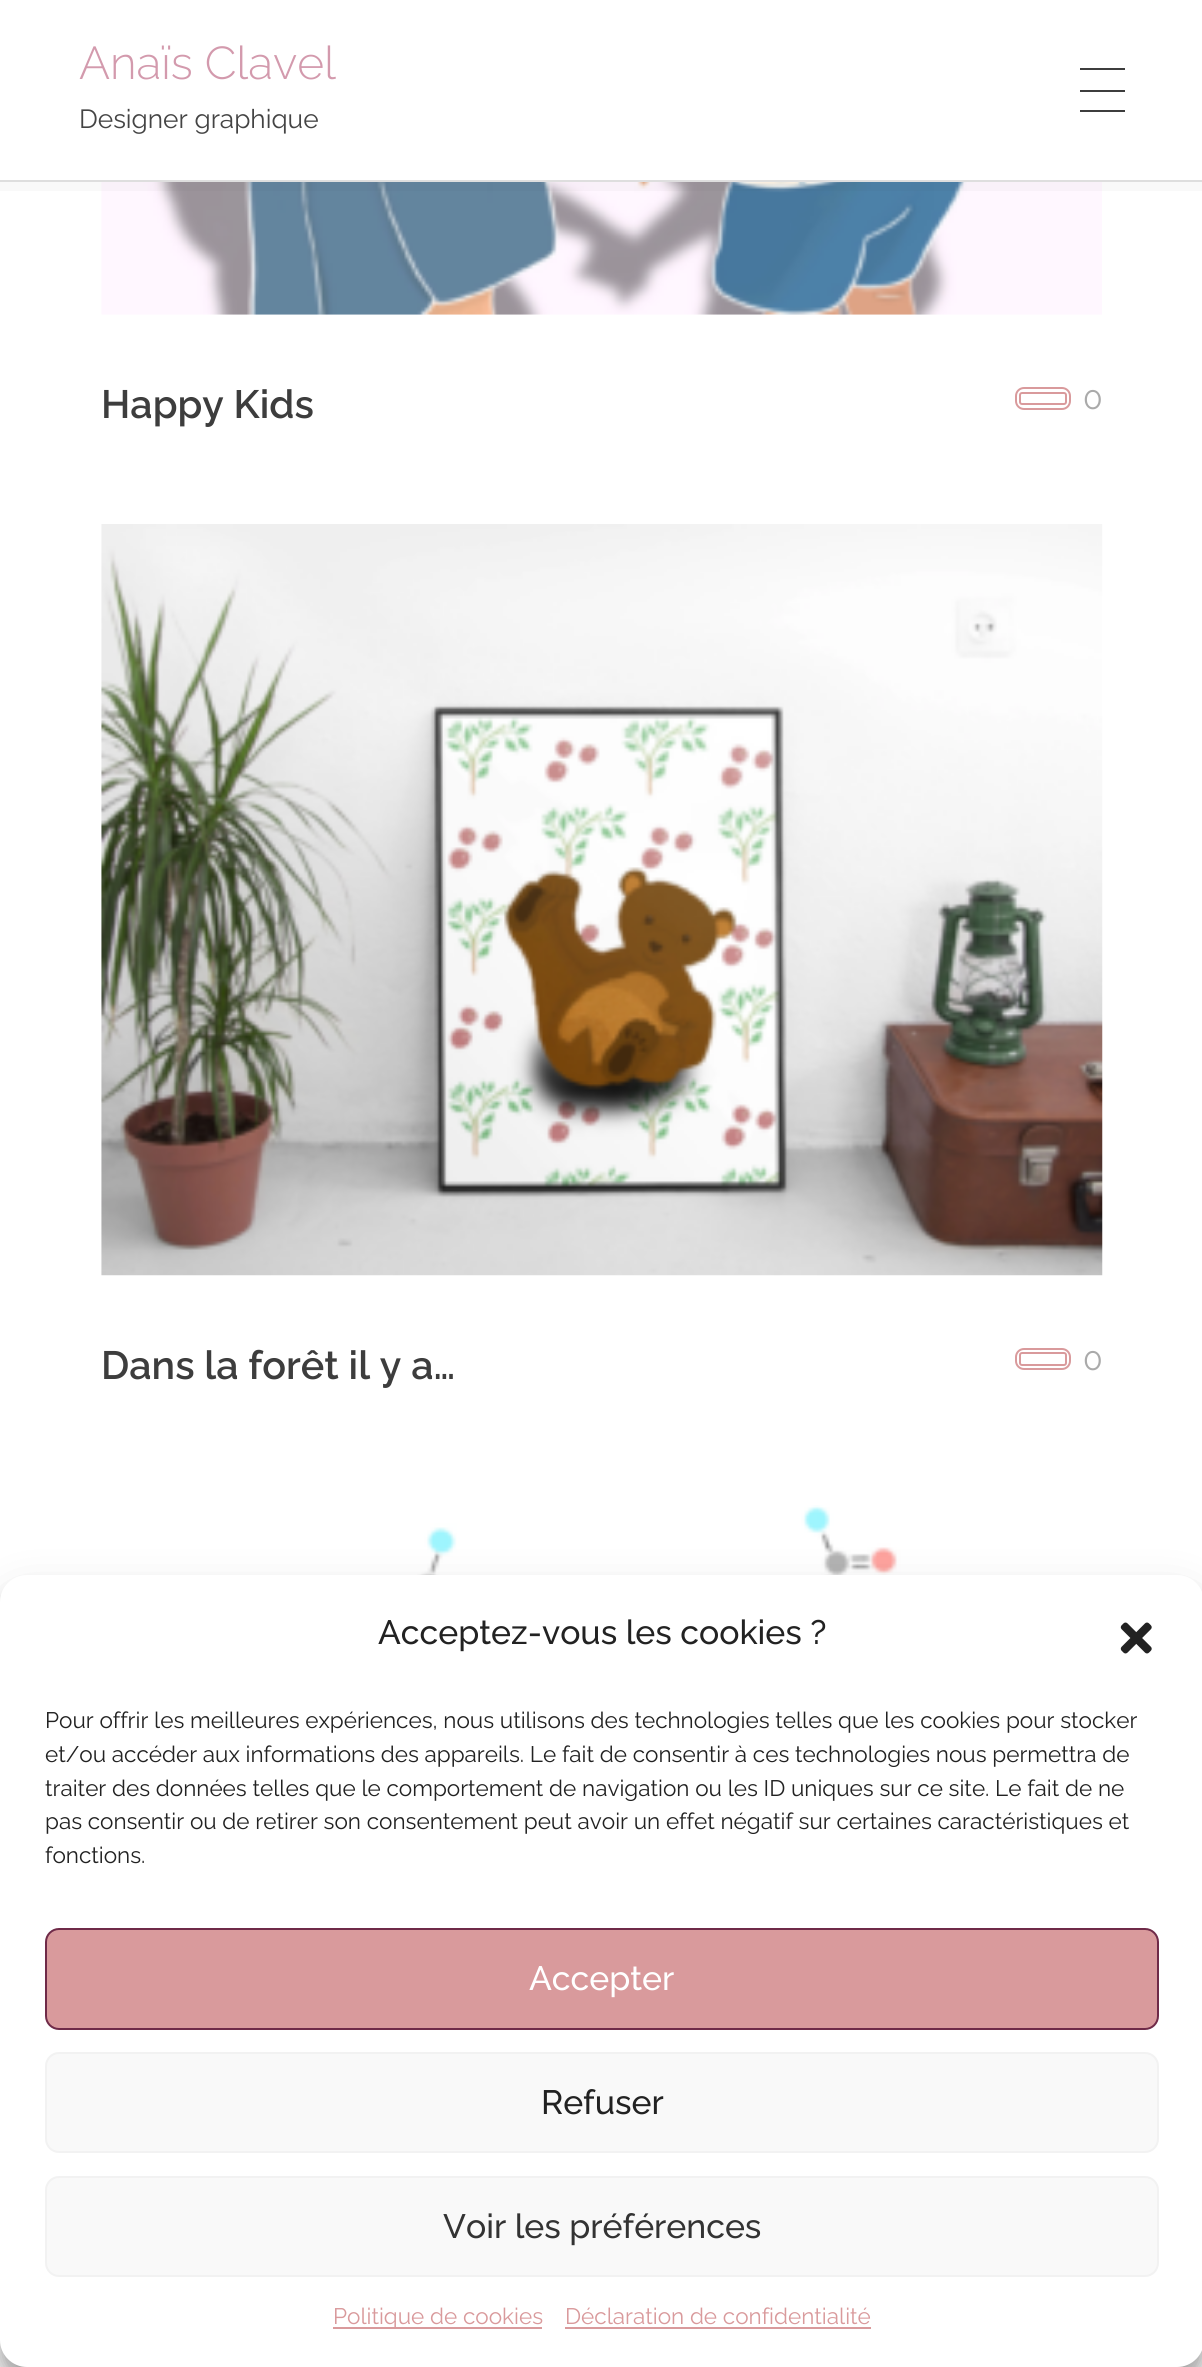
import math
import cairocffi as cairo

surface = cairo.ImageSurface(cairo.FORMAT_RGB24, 1202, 2367)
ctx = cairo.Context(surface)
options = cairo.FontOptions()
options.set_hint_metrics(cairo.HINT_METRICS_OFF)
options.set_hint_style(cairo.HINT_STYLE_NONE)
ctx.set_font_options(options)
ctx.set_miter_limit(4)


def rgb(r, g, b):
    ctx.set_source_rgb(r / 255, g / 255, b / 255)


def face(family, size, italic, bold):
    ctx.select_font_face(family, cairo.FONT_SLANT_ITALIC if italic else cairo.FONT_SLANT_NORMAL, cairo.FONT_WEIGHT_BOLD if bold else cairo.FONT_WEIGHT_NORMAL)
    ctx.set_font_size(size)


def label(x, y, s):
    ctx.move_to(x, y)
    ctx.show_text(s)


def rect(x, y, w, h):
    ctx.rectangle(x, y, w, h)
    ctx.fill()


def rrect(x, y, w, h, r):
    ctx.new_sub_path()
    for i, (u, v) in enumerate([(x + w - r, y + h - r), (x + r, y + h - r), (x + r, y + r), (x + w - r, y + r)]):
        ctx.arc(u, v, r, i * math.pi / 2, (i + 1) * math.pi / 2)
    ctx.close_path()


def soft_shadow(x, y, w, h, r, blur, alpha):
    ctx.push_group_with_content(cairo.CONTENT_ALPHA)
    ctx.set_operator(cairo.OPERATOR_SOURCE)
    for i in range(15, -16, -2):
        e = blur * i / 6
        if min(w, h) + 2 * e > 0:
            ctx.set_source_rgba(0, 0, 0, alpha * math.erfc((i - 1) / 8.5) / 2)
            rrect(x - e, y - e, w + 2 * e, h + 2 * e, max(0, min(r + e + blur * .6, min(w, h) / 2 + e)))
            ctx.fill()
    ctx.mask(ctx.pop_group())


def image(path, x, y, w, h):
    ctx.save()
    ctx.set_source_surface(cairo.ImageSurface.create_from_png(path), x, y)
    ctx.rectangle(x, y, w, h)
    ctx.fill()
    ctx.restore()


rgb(255, 255, 255)
ctx.paint()
image('image0.png', 101, 182, 1001, 133)
ctx.set_source_rgba(0.133, 0.133, 0.133, 0.03)
ctx.new_path()
ctx.move_to(0, 182)
ctx.line_to(0, 191)
ctx.line_to(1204, 191)
ctx.line_to(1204, 9)
ctx.line_to(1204, 182)
ctx.close_path()
ctx.fill()
rgb(222, 222, 222)
rect(0, 180, 1202, 2)
face('Raleway Light', 46, 0, 0)
rgb(211, 154, 173)
label(79, 79, 'Anaïs Clavel')
face('Raleway', 26.25, 0, 0)
rgb(68, 68, 68)
label(79, 128, 'Designer graphique')
rgb(61, 61, 61)
rect(1080, 68, 45, 2)
rect(1080, 90, 45, 2)
rect(1080, 110, 45, 2)
face('Raleway SemiBold', 39.5, 0, 0)
label(101, 418, 'Happy Kids')
rrect(1016, 388, 54, 21, 8)
rgb(217, 154, 156)
ctx.stroke()
rrect(1020, 393, 46, 11, 2)
ctx.stroke()
face('Raleway', 32, 0, 0)
rgb(170, 170, 170)
label(1083, 409, '0')
image('image1.png', 101, 524, 1002, 752)
face('Raleway SemiBold', 39.5, 0, 0)
rgb(61, 61, 61)
label(101, 1379, 'Dans la forêt il y a…')
rrect(1016, 1349, 54, 20, 8)
rgb(217, 154, 156)
ctx.stroke()
rrect(1020, 1353, 46, 12, 2)
ctx.stroke()
face('Raleway', 32, 0, 0)
rgb(170, 170, 170)
label(1083, 1370, '0')
image('image2.png', 225, 1505, 761, 70)
rgb(0, 0, 0)
soft_shadow(0, 1589, 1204, 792, 27, 7, 0.23)
soft_shadow(0, 1598, 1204, 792, 27, 22.5, 0.19)
rgb(255, 255, 255)
rrect(0, 1575, 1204, 792, 27)
ctx.fill()
face('Raleway Medium', 33.75, 0, 0)
rgb(34, 34, 34)
label(378, 1644, 'Acceptez-vous les cookies ?')
image('image3.png', 1120, 1622, 32, 32)
face('Raleway', 22.5, 0, 0)
label(45, 1728, 'Pour offrir les meilleures expériences, nous utilisons des technologies telles que les cookies pour stocker')
label(45, 1762, 'et/ou accéder aux informations des appareils. Le fait de consentir à ces technologies nous permettra de')
label(45, 1796, 'traiter des données telles que le comportement de navigation ou les ID uniques sur ce site. Le fait de ne')
label(45, 1829, 'pas consentir ou de retirer son consentement peut avoir un effet négatif sur certaines caractéristiques et')
label(45, 1863, 'fonctions.')
rgb(217, 154, 156)
rrect(46, 1929, 1112, 100, 13)
ctx.fill_preserve()
rgb(111, 42, 72)
ctx.stroke()
face('Raleway Medium', 33.75, 0, 0)
rgb(255, 255, 255)
label(529, 1990, 'Accepter')
rgb(249, 249, 249)
rrect(46, 2053, 1112, 99, 13)
ctx.fill_preserve()
rgb(242, 242, 242)
ctx.stroke()
rgb(34, 34, 34)
label(541, 2114, 'Refuser')
rgb(249, 249, 249)
rrect(46, 2177, 1112, 99, 13)
ctx.fill_preserve()
rgb(242, 242, 242)
ctx.stroke()
rgb(51, 51, 51)
label(443, 2238, 'Voir les préférences')
rgb(217, 154, 156)
rect(333, 2327, 209, 2)
face('Raleway', 22.5, 0, 0)
label(333, 2324, 'Politique de cookies')
label(565, 2324, 'Déclaration de confidentialité')
rect(565, 2327, 306, 2)
surface.write_to_png('render.png')
